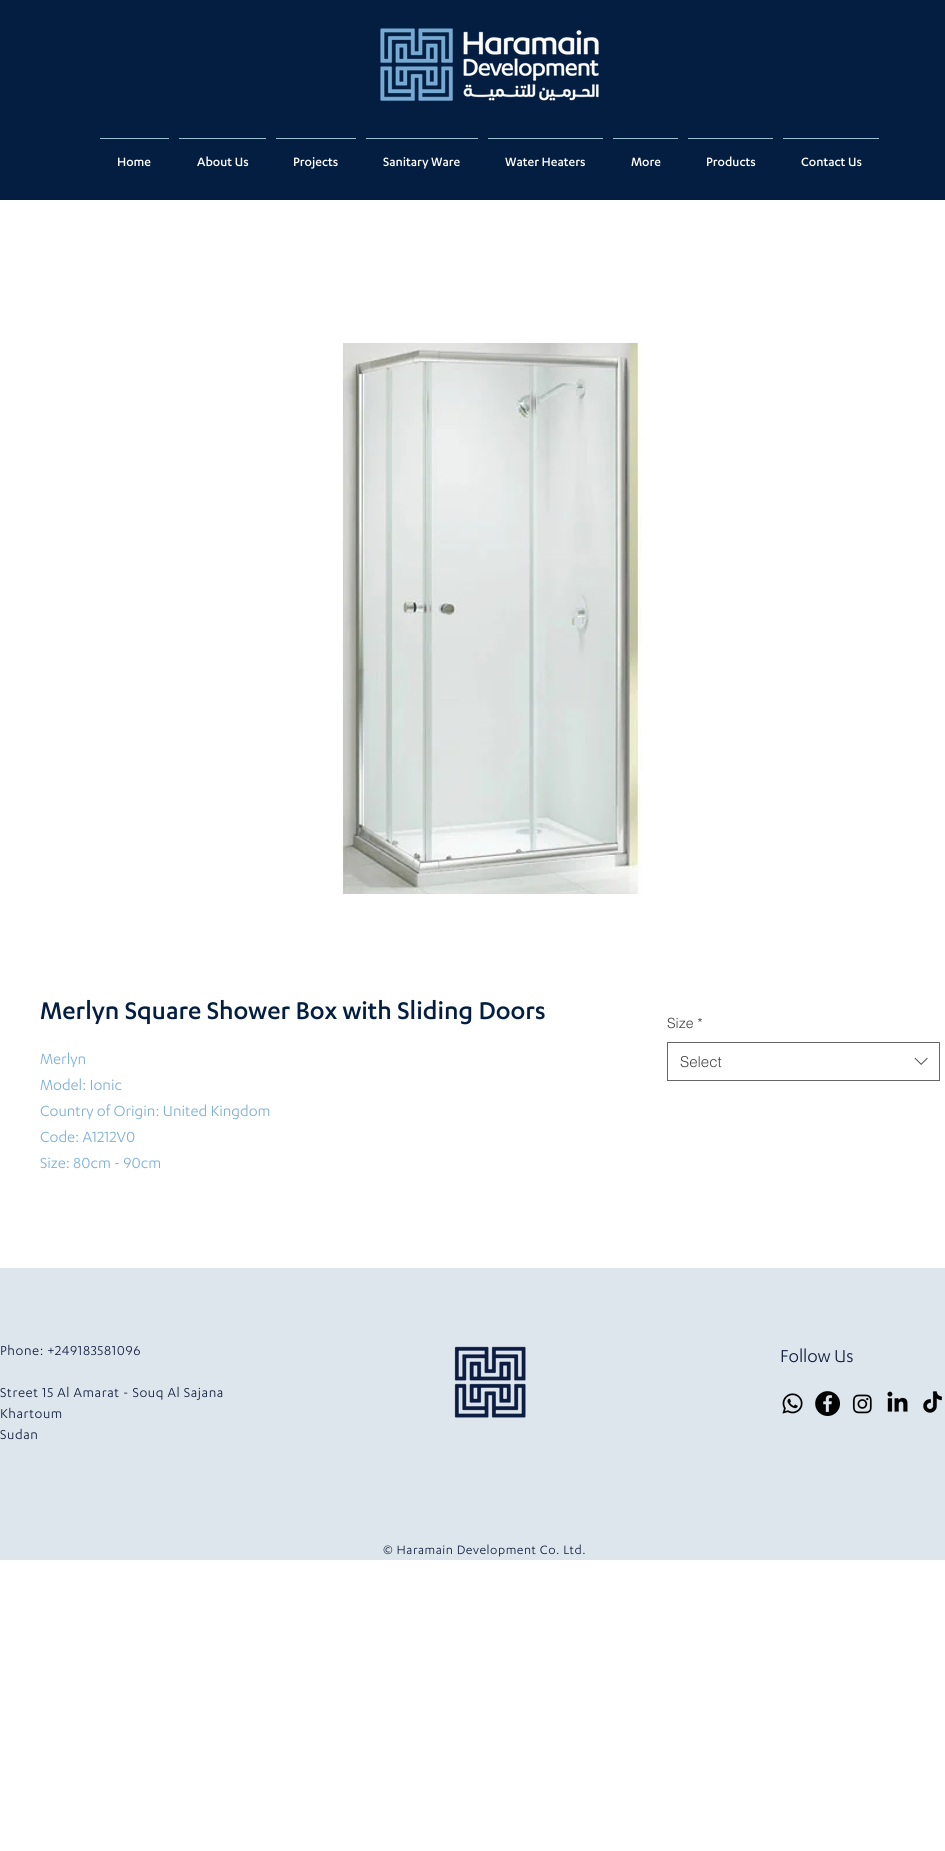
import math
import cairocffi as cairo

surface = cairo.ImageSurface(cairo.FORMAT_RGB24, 945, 1851)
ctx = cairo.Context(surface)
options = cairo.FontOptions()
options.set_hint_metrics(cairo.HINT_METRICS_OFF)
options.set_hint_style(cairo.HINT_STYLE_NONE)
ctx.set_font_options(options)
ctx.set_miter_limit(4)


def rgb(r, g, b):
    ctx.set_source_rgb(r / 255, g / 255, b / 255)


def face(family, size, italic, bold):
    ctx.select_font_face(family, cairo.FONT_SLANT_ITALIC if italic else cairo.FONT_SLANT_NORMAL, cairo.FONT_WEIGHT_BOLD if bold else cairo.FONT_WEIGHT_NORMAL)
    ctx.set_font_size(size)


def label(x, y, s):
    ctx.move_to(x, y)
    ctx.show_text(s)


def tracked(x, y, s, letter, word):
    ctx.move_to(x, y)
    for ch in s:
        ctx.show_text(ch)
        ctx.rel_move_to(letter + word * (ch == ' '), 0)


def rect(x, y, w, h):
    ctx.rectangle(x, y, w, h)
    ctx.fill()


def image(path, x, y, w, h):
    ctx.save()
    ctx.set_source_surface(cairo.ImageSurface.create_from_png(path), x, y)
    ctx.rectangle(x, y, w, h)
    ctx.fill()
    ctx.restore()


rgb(255, 255, 255)
ctx.paint()
rgb(4, 30, 66)
rect(0, 0, 945, 200)
image('image0.png', 380, 28, 219, 73)
rgb(156, 191, 212)
rect(100, 138, 69, 1)
face('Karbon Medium', 14, 0, 0)
rgb(255, 255, 255)
label(117, 166, 'Home')
rgb(156, 191, 212)
rect(179, 138, 87, 1)
rgb(255, 255, 255)
label(197, 166, 'About Us')
rgb(156, 191, 212)
rect(276, 138, 80, 1)
rgb(255, 255, 255)
label(293, 166, 'Projects')
rgb(156, 191, 212)
rect(366, 138, 112, 1)
rgb(255, 255, 255)
label(383, 166, 'Sanitary Ware')
rgb(156, 191, 212)
rect(488, 138, 115, 1)
rgb(255, 255, 255)
label(505, 166, 'Water Heaters')
rgb(156, 191, 212)
rect(613, 138, 65, 1)
rgb(255, 255, 255)
label(631, 166, 'More')
rgb(156, 191, 212)
rect(688, 138, 85, 1)
rgb(255, 255, 255)
label(706, 166, 'Products')
rgb(156, 191, 212)
rect(783, 138, 96, 1)
rgb(255, 255, 255)
label(801, 166, 'Contact Us')
image('image1.png', 340, 343, 304, 551)
face('Karbon Medium', 28, 0, 0)
rgb(4, 30, 66)
label(40, 1019, 'Merlyn Square Shower Box with Sliding Doors')
face('Karbon', 17, 0, 0)
rgb(123, 175, 212)
label(40, 1064, 'Merlyn')
label(40, 1090, 'Model: Ionic')
label(40, 1116, 'Country of Origin: United Kingdom')
label(40, 1142, 'Code: A1212V0')
label(40, 1168, 'Size: 80cm - 90cm')
face('helvetica Light', 14, 0, 0)
rgb(59, 58, 58)
label(667, 1028, 'Size *')
ctx.rectangle(667.5, 1042.5, 272, 38)
rgb(102, 102, 102)
ctx.set_line_width(1)
ctx.stroke()
face('helvetica Light', 15, 0, 0)
rgb(68, 68, 68)
label(680, 1067, 'Select')
image('image2.png', 914, 1057, 14, 8)
rgb(221, 229, 237)
rect(0, 1268, 945, 292)
face('Karbon', 15, 0, 0)
rgb(16, 30, 60)
tracked(0, 1355, 'Phone: +249183581096', 0.6, 0)
tracked(0, 1397, 'Street 15 Al Amarat - Souq Al Sajana', 0.6, 0)
tracked(0, 1418, 'Khartoum', 0.6, 0)
tracked(0, 1439, 'Sudan', 0.6, 0)
image('image3.png', 454, 1346, 72, 72)
face('Karbon', 20, 0, 0)
label(780, 1362, 'Follow Us')
image('image4.png', 782, 1393, 21, 21)
image('image5.png', 815, 1391, 25, 25)
image('image6.png', 852, 1394, 20, 20)
image('image7.png', 887, 1391, 21, 21)
image('image8.png', 923, 1391, 19, 22)
face('Karbon', 14, 0, 0)
tracked(383, 1554, '© Haramain Development Co. Ltd.', 0.55, 0)
surface.write_to_png('render.png')
